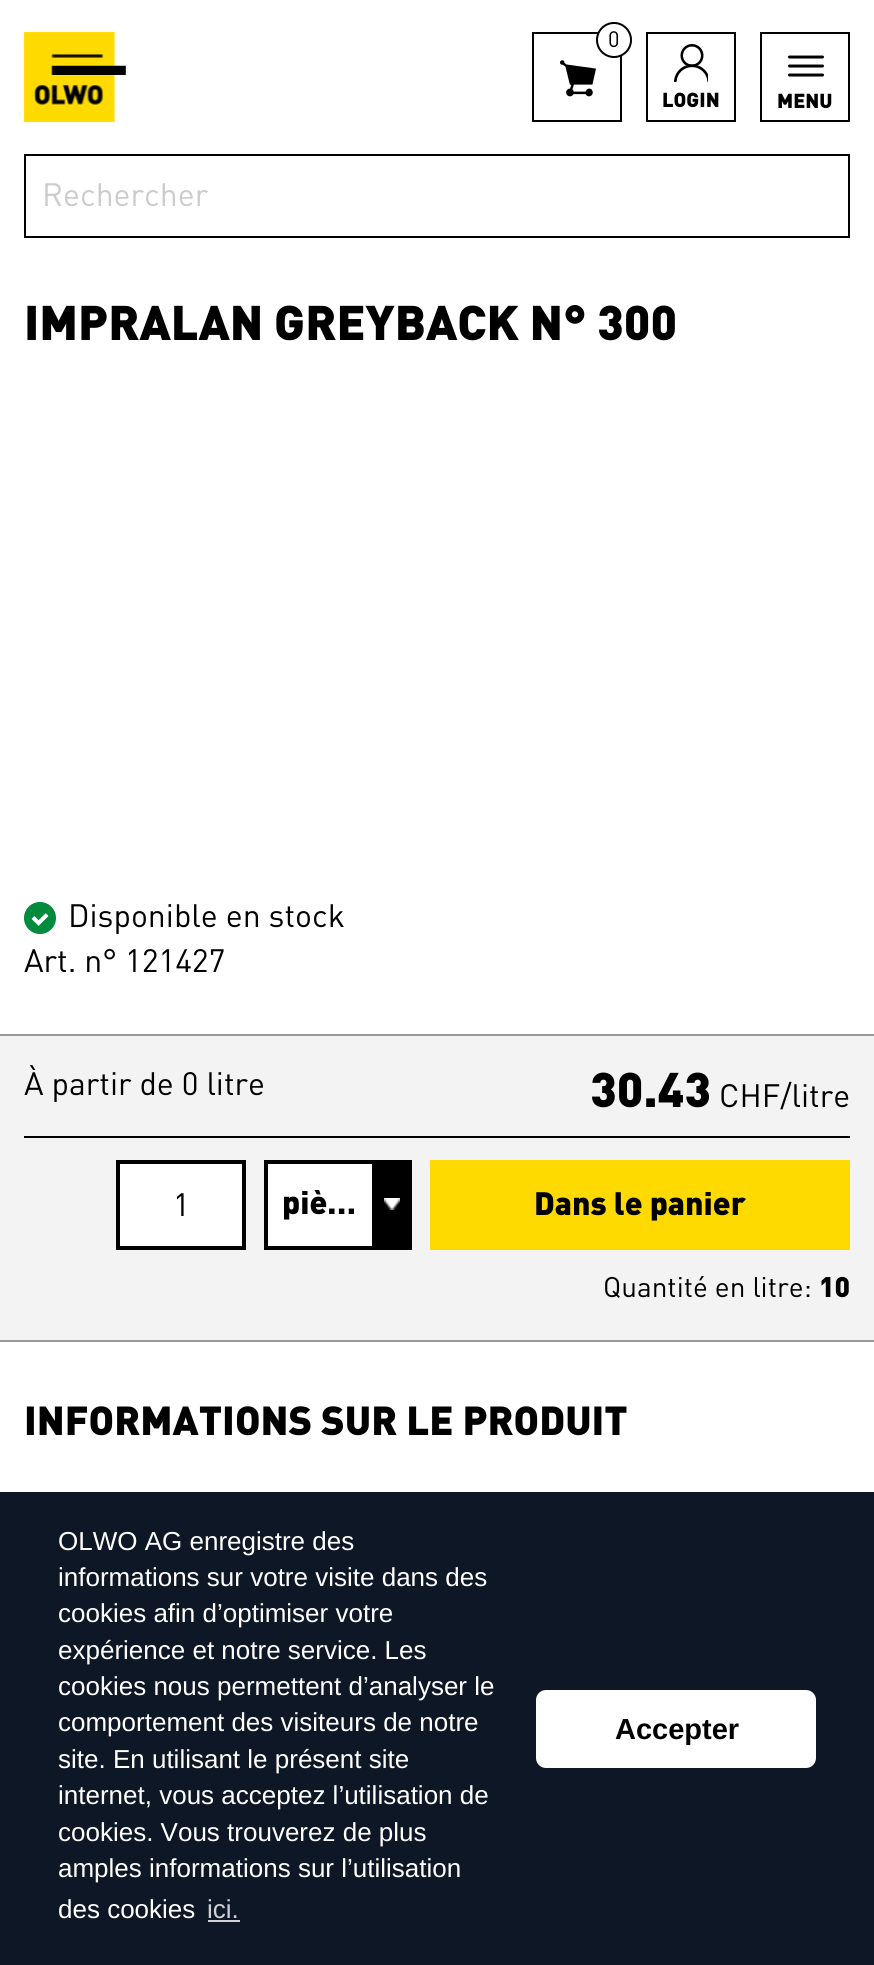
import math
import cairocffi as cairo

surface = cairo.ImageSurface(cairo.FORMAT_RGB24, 874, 1965)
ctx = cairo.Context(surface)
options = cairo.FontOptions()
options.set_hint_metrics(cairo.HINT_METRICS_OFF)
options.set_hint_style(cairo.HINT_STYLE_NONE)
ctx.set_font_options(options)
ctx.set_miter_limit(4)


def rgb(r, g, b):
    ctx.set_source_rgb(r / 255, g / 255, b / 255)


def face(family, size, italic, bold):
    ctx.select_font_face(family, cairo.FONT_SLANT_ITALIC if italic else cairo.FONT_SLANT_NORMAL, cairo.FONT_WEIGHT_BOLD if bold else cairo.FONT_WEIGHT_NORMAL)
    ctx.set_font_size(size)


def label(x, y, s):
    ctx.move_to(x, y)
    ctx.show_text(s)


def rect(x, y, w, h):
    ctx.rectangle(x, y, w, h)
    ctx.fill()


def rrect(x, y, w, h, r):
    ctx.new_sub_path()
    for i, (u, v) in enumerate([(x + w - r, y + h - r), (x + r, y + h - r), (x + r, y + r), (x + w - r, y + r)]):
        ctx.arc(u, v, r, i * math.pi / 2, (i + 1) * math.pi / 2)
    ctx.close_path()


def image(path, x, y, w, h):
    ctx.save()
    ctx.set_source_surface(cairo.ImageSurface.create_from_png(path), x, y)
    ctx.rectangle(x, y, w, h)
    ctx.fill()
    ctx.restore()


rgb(255, 255, 255)
ctx.paint()
image('image0.png', 24, 32, 102, 91)
ctx.rectangle(533, 33, 88, 88)
rgb(0, 0, 0)
ctx.stroke()
rgb(255, 255, 255)
ctx.arc(614, 40, 17, 0, 2 * math.pi)
ctx.fill_preserve()
rgb(0, 0, 0)
ctx.stroke()
face('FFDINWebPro', 22, 0, 0)
label(608, 47, '0')
image('image1.png', 560, 60, 36, 37)
ctx.rectangle(647, 33, 88, 88)
ctx.stroke()
image('image2.png', 674, 44, 34, 38)
face('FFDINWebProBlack', 20, 0, 0)
label(662, 107, 'LOGIN')
ctx.rectangle(761, 33, 88, 88)
ctx.stroke()
image('image3.png', 788, 55, 36, 22)
label(777, 108, 'MENU')
ctx.rectangle(25, 155, 824, 82)
ctx.stroke()
face('FFDINWebPro', 32, 0, 0)
rgb(204, 204, 204)
label(42, 206, 'Rechercher')
face('FFDINWebProBlack', 48, 0, 0)
rgb(0, 0, 0)
label(24, 340, 'IMPRALAN GREYBACK N° 300')
image('image4.png', 24, 902, 32, 32)
face('FFDINWebPro', 32, 0, 0)
label(68, 927, 'Disponible en stock')
label(24, 972, 'Art. n° 121427')
rgb(243, 243, 243)
rect(0, 1036, 874, 304)
rgb(151, 151, 151)
rect(0, 1034, 874, 2)
rect(0, 1340, 874, 2)
rgb(0, 0, 0)
label(24, 1095, 'À partir de 0 litre')
face('FFDINWebProBlack', 48, 0, 0)
label(590, 1107, '30.43')
face('FFDINWebPro', 32, 0, 0)
label(719, 1107, 'CHF/litre')
rect(24, 1136, 826, 2)
rgb(255, 255, 255)
ctx.rectangle(118, 1162, 126, 86)
ctx.fill_preserve()
rgb(0, 0, 0)
ctx.set_line_width(4)
ctx.stroke()
label(173, 1216, '1')
rgb(255, 255, 255)
rect(268, 1164, 104, 82)
rgb(0, 0, 0)
rect(264, 1160, 108, 4)
rect(372, 1160, 40, 86)
rect(264, 1246, 148, 4)
rect(264, 1160, 4, 90)
ctx.save()
ctx.rectangle(280, 1190, 80, 32)
ctx.clip()
face('FFDINWebProBlack', 32, 0, 0)
label(282, 1214, 'piè…')
ctx.restore()
image('image5.png', 384, 1198, 16, 12)
rgb(255, 218, 0)
rect(430, 1160, 420, 90)
face('FFDINWebProBlack', 32, 0, 0)
rgb(0, 0, 0)
label(534, 1215, 'Dans le panier')
face('FFDINWebPro', 28, 0, 0)
label(603, 1297, 'Quantité en litre:')
face('FFDINWebProBlack', 28, 0, 0)
label(819, 1297, '10')
face('FFDINWebProBlack', 40, 0, 0)
label(24, 1435, 'INFORMATIONS SUR LE PRODUIT')
rgb(14, 23, 38)
rect(0, 1492, 874, 473)
face('Liberation Sans', 26, 0, 0)
rgb(255, 255, 255)
label(58, 1550, 'OLWO AG enregistre des')
label(58, 1586, 'informations sur votre visite dans des')
label(58, 1622, 'cookies afin d’optimiser votre')
label(58, 1659, 'expérience et notre service. Les')
label(58, 1695, 'cookies nous permettent d’analyser le')
label(58, 1731, 'comportement des visiteurs de notre')
label(58, 1768, 'site. En utilisant le présent site')
label(58, 1804, 'internet, vous acceptez l’utilisation de')
label(58, 1841, 'cookies. Vous trouverez de plus')
label(58, 1877, 'amples informations sur l’utilisation')
label(58, 1918, 'des cookies')
rgb(207, 209, 212)
label(207, 1918, 'ici.')
rect(208, 1920, 32, 2)
rgb(255, 255, 255)
rrect(536, 1690, 280, 78, 10)
ctx.fill()
face('Liberation Sans', 29, 0, 1)
rgb(0, 0, 0)
label(615, 1739, 'Accepter')
surface.write_to_png('render.png')
